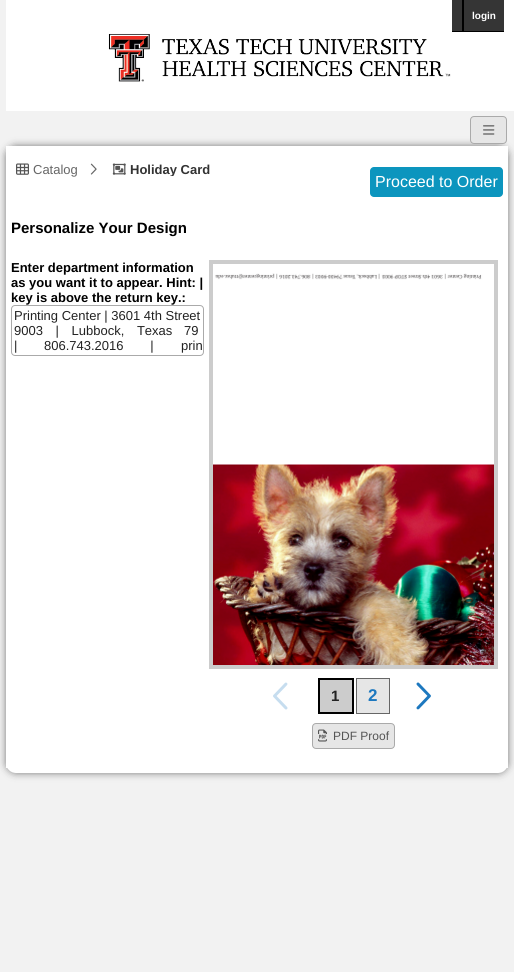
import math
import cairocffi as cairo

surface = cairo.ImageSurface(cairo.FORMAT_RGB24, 514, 972)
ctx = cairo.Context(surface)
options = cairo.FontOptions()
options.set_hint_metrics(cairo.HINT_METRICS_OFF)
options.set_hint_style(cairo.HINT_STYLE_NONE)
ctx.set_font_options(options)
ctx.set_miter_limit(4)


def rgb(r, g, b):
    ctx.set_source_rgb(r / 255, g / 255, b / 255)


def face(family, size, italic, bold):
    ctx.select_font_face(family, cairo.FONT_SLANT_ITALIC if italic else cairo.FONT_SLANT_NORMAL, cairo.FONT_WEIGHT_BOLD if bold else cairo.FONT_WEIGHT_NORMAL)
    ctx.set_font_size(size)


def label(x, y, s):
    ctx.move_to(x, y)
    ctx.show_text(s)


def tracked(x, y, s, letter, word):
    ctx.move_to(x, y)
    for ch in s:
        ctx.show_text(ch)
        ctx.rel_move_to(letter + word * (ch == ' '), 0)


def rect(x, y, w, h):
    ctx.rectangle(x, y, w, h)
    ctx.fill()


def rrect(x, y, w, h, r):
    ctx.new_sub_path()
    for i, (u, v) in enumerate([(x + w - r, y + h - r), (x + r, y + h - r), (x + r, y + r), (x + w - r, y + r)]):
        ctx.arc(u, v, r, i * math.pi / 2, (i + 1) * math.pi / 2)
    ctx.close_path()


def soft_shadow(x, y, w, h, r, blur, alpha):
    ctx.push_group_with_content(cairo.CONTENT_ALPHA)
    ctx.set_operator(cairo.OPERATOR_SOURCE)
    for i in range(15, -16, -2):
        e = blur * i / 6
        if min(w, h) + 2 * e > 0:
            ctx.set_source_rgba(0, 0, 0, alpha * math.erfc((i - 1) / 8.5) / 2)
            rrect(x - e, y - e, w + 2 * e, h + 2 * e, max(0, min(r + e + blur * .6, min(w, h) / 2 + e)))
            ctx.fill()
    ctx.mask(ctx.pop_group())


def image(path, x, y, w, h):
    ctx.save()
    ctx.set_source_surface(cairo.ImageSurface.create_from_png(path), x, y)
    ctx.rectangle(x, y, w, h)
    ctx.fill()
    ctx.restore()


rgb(242, 242, 242)
ctx.paint()
image('image0.png', 6, 0, 508, 111)
rgb(53, 53, 53)
rect(452, 0, 52, 31)
rgb(0, 0, 0)
rect(452, 31, 52, 1)
face('Liberation Sans', 10, 0, 1)
rgb(255, 255, 255)
label(472, 19, 'login')
rgb(0, 0, 0)
rect(462, 0, 2, 31)
rgb(0, 0, 0)
soft_shadow(6, 146, 502, 627, 10, 4, 0.5)
rgb(230, 230, 230)
rrect(470.5, 116.5, 36, 27, 3.5)
ctx.fill_preserve()
rgb(170, 170, 170)
ctx.set_line_width(1)
ctx.stroke()
image('image1.png', 483, 125, 12, 10)
rgb(255, 255, 255)
ctx.new_path()
ctx.move_to(6, 146)
ctx.line_to(508, 146)
ctx.line_to(508, 763)
ctx.curve_to(508, 768.5, 503.5, 773, 498, 773)
ctx.line_to(16, 773)
ctx.curve_to(10.5, 773, 6, 768.5, 6, 763)
ctx.close_path()
ctx.fill()
image('image2.png', 16, 163, 13, 12)
face('Liberation Sans', 13, 0, 0)
rgb(102, 102, 102)
label(33, 174, 'Catalog')
image('image3.png', 90, 163, 7, 12)
image('image4.png', 112, 163, 14, 12)
ctx.save()
ctx.rectangle(112, 162, 122, 14)
ctx.clip()
face('Liberation Sans', 13, 0, 1)
rgb(51, 51, 51)
label(130, 174, 'Holiday Card')
ctx.restore()
rgb(12, 149, 190)
rrect(370, 167, 133, 30, 4)
ctx.fill()
face('Liberation Sans', 16, 0, 0)
rgb(255, 255, 255)
label(375, 187, 'Proceed to Order')
rect(6, 763, 502, 5)
face('Liberation Sans', 15, 0, 1)
rgb(0, 0, 0)
label(11, 233, 'Personalize Your Design')
face('Liberation Sans', 13, 0, 1)
label(11, 272, 'Enter department information')
label(11, 287, 'as you want it to appear. Hint: |')
label(11, 302, 'key is above the return key.:')
rrect(11.5, 305.5, 192, 50, 3.5)
rgb(170, 170, 170)
ctx.stroke()
face('Liberation Sans', 13, 0, 0)
rgb(34, 34, 34)
label(14, 320, 'Printing Center | 3601 4th Street')
tracked(14, 335, '9003 | Lubbock, Texas', 0, 9)
label(184, 335, '79')
tracked(14, 350, '| 806.743.2016 |', 0, 23)
label(181, 350, 'prin')
ctx.rectangle(211, 262, 285, 405)
rgb(204, 204, 204)
ctx.set_line_width(4)
ctx.stroke()
image('image5.png', 213, 273, 281, 392)
image('image6.png', 273, 682, 15, 28)
ctx.rectangle(319, 679, 34, 34)
ctx.fill_preserve()
rgb(0, 0, 0)
ctx.set_line_width(2)
ctx.stroke()
face('Liberation Sans', 15, 0, 1)
rgb(34, 34, 34)
label(331, 701, '1')
rgb(230, 230, 230)
ctx.rectangle(356.5, 678.5, 33, 35)
ctx.fill_preserve()
rgb(102, 102, 102)
ctx.set_line_width(1)
ctx.stroke()
face('Liberation Sans', 17, 0, 1)
rgb(29, 120, 191)
label(368, 701, '2')
image('image7.png', 416, 682, 15, 28)
rgb(230, 230, 230)
rrect(312.5, 723.5, 82, 25, 3.5)
ctx.fill_preserve()
rgb(170, 170, 170)
ctx.stroke()
image('image8.png', 318, 729, 9, 13)
face('Liberation Sans', 12, 0, 0)
rgb(85, 85, 85)
label(333, 740, 'PDF Proof')
surface.write_to_png('render.png')
